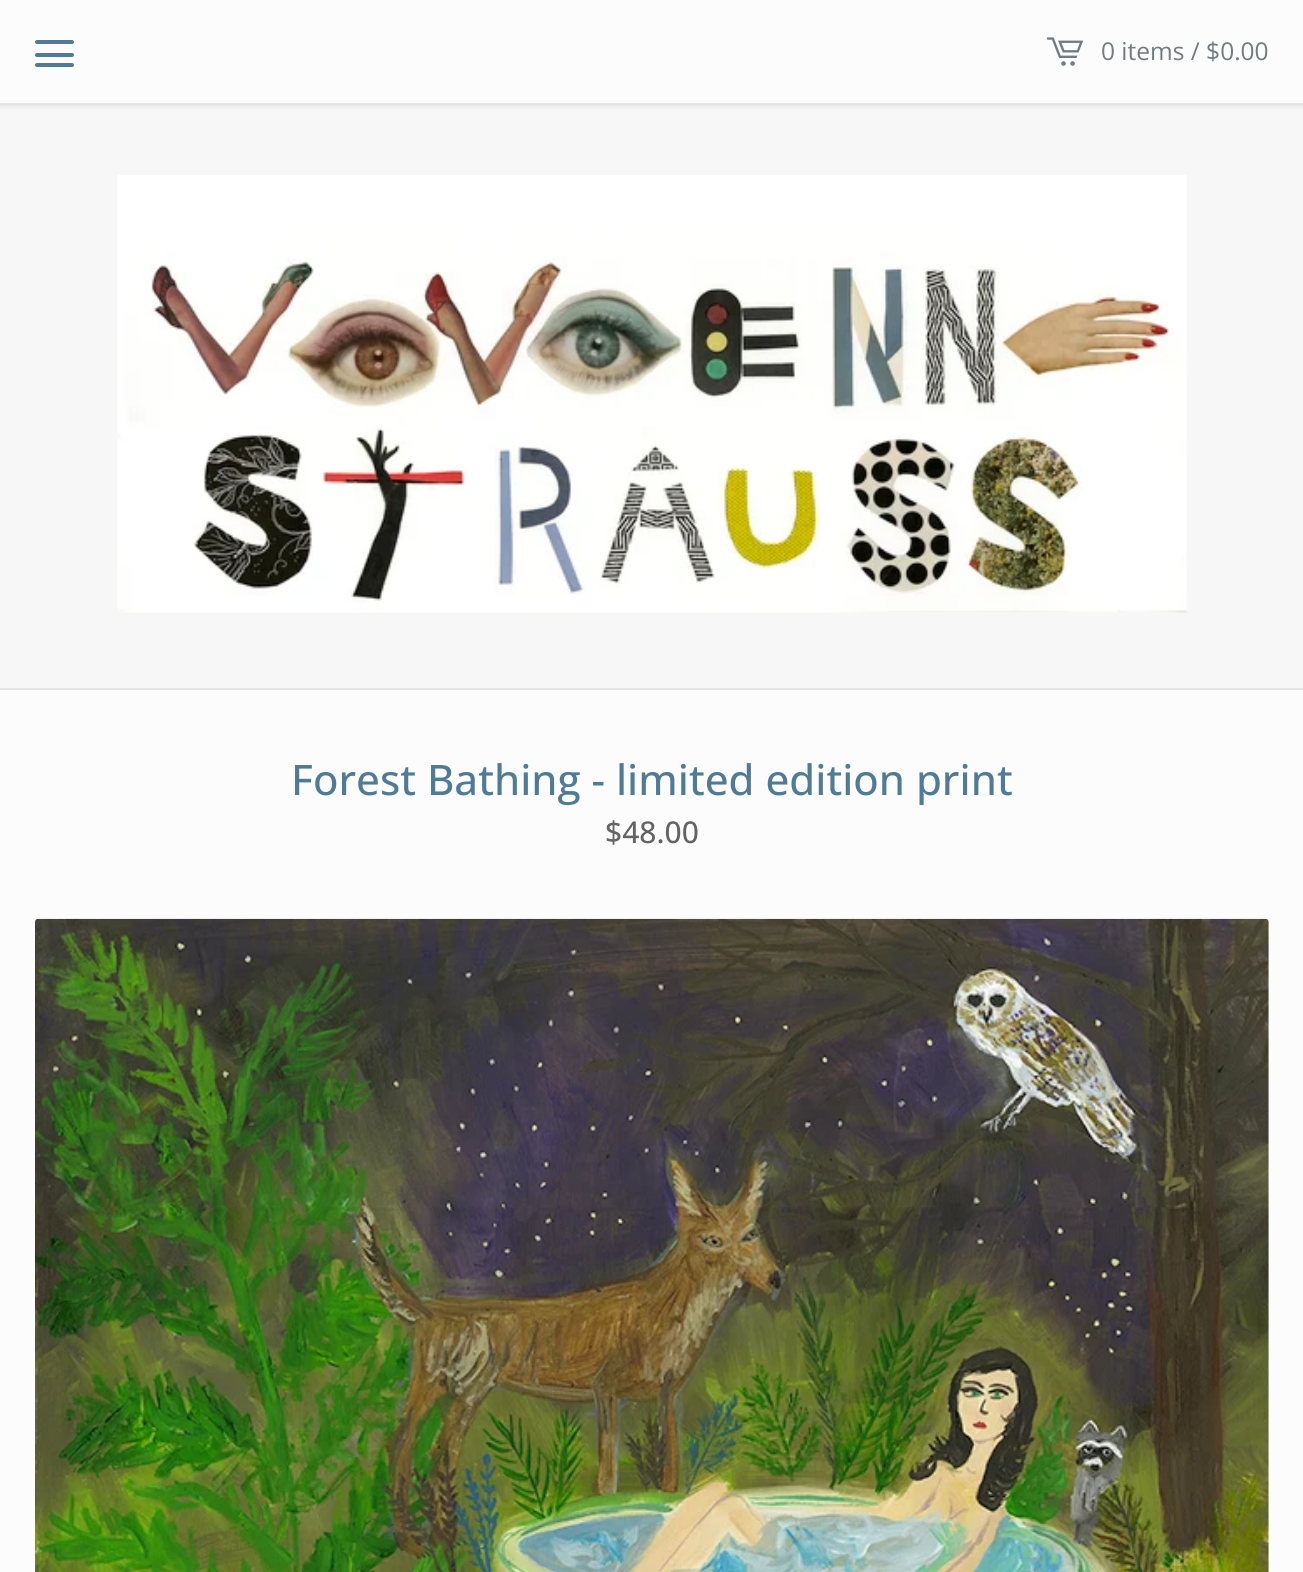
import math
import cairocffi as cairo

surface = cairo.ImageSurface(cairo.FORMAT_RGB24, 1303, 1572)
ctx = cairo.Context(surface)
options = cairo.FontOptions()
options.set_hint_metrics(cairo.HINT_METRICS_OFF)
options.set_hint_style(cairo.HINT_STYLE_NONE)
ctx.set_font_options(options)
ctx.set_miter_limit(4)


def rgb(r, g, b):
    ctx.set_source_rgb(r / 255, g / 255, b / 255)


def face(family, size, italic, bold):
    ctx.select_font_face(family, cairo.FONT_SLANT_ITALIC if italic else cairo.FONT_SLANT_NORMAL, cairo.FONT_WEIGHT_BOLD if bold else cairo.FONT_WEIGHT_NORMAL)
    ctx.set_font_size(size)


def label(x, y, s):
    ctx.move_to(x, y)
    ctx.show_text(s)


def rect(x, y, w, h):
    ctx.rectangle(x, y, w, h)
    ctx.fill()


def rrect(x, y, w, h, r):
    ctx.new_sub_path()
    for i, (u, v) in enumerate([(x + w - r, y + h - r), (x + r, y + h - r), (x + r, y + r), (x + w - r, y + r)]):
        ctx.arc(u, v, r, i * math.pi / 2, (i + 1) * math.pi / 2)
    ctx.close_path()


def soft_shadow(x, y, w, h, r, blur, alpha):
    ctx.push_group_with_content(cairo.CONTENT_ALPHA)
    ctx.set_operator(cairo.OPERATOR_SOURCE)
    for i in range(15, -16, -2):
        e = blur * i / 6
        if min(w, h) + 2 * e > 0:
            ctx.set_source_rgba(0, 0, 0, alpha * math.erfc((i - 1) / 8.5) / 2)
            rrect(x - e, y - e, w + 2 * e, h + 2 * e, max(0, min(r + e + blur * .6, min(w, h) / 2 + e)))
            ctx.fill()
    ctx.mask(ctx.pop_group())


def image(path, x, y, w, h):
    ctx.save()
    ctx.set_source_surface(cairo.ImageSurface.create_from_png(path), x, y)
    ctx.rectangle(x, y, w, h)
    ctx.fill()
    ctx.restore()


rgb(252, 252, 252)
ctx.paint()
rgb(247, 247, 247)
rect(0, 105, 1303, 583)
rgb(229, 229, 229)
soft_shadow(0, 2, 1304, 105, 0, 2.5, 1)
rgb(252, 252, 252)
rect(0, 0, 1303, 103)
rgb(229, 229, 229)
rect(0, 103, 1303, 2)
rgb(80, 123, 150)
rrect(35, 40, 39, 4, 2)
ctx.fill()
rrect(35, 53, 39, 4, 2)
ctx.fill()
rrect(35, 63, 39, 4, 2)
ctx.fill()
image('image0.png', 1047, 37, 36, 29)
face('Open Sans', 24.5, 0, 0)
rgb(113, 124, 130)
label(1101, 60, '0 items / $0.00')
rgb(229, 229, 229)
rect(0, 688, 1303, 2)
image('image1.png', 117, 175, 1070, 438)
face('Open Sans Medium', 42, 0, 0)
rgb(80, 123, 150)
label(291, 795, 'Forest Bathing - limited edition print')
face('Open Sans Medium', 30, 0, 0)
rgb(100, 100, 100)
label(605, 843, '$48.00')
image('image2.png', 35, 918, 1234, 654)
surface.write_to_png('render.png')
